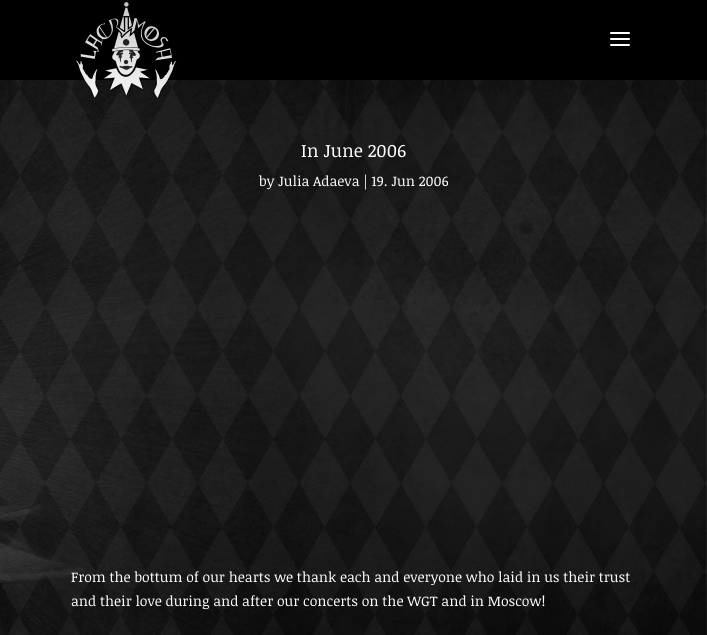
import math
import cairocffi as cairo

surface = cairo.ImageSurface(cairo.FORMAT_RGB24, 707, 635)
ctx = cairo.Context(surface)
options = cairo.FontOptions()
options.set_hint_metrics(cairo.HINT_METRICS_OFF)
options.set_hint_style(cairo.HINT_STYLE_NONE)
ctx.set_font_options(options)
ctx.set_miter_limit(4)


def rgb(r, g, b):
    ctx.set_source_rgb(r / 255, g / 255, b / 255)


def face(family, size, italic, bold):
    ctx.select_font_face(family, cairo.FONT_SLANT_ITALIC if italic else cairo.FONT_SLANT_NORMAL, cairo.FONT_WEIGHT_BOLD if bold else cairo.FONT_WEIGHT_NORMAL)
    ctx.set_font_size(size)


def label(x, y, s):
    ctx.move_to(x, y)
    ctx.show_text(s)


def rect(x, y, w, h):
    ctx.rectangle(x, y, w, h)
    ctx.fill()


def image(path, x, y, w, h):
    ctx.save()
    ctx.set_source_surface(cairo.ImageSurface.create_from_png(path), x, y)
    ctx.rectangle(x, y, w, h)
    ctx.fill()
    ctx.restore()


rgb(255, 255, 255)
ctx.paint()
rgb(0, 0, 0)
rect(0, 0, 707, 80)
image('image2.png', 0, 80, 707, 555)
image('image0.png', 76, 2, 101, 96)
image('image1.png', 610, 32, 20, 14)
face('Noticia Text', 18, 0, 0)
rgb(255, 255, 255)
label(301, 157, 'In June 2006')
face('Noticia Text', 14, 0, 0)
label(259, 186, 'by Julia Adaeva | 19. Jun 2006')
label(71, 582, 'From the bottum of our hearts we thank each and everyone who laid in us their trust')
label(71, 606, 'and their love during and after our concerts on the WGT and in Moscow!')
surface.write_to_png('render.png')
